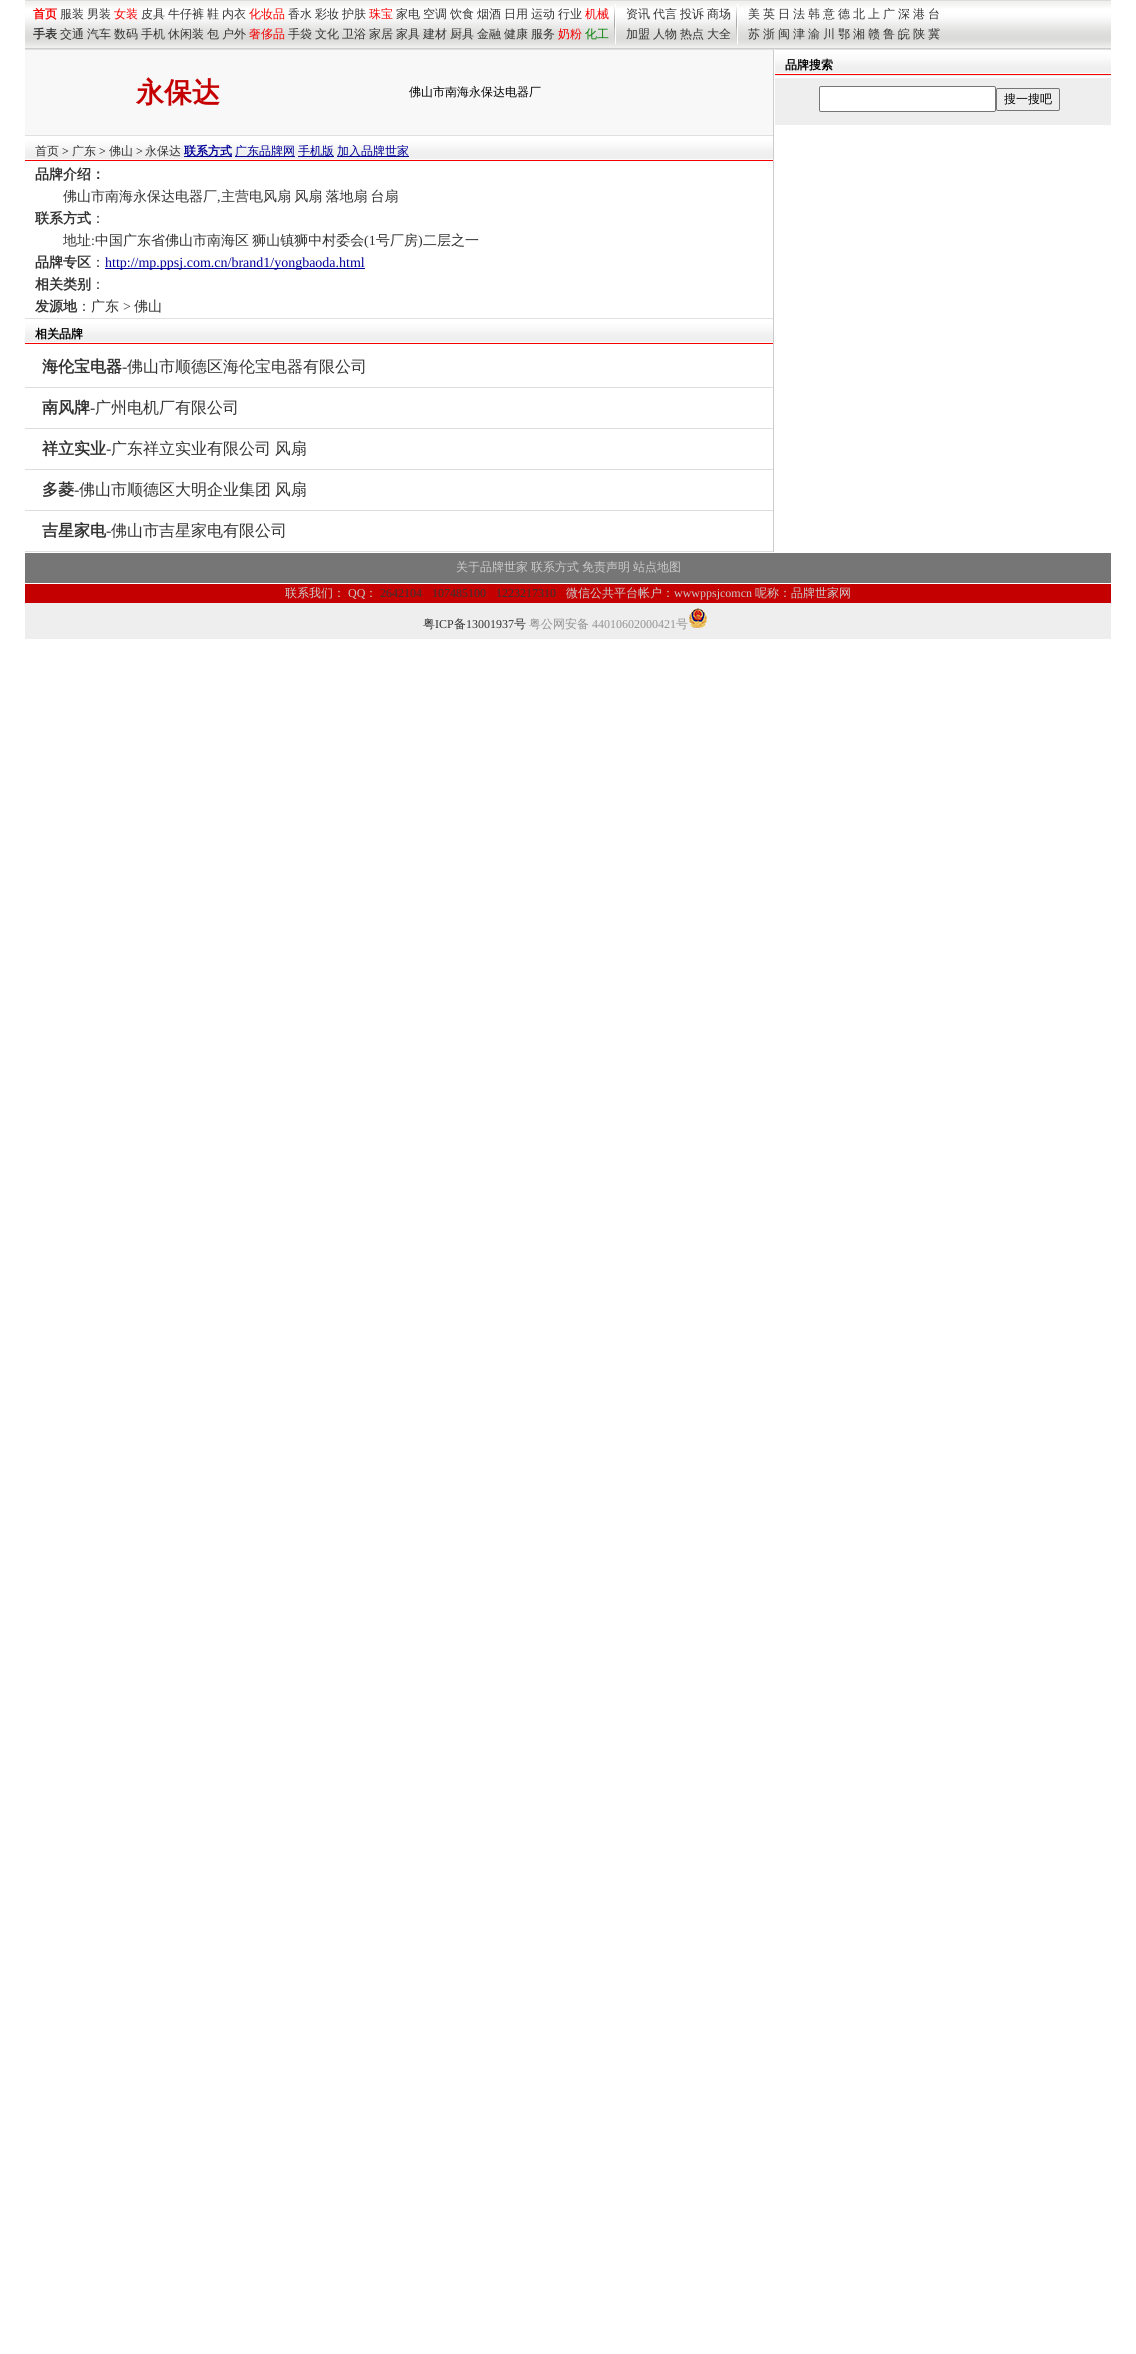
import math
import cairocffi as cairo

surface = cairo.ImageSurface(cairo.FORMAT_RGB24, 1136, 2354)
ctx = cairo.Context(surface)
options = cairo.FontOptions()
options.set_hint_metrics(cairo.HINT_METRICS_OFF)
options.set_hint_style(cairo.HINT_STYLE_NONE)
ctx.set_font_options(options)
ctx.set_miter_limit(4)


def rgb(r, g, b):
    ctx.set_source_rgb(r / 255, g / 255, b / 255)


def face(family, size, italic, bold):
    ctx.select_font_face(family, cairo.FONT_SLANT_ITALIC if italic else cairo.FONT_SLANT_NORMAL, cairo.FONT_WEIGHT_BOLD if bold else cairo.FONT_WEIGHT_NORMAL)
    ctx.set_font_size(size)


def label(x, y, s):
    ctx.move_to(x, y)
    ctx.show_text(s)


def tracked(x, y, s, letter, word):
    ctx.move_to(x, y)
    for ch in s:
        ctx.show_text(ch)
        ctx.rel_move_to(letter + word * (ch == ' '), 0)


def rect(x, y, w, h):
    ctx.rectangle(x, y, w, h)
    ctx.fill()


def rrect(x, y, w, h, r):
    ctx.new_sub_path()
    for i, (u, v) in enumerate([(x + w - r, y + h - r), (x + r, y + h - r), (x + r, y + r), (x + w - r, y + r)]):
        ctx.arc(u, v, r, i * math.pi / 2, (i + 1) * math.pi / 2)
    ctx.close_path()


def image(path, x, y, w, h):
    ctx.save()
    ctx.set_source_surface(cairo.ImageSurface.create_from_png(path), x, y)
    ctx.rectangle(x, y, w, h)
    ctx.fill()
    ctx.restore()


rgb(255, 255, 255)
ctx.paint()
image('image0.png', 25, 0, 1086, 48)
rgb(204, 204, 204)
rect(25, 48, 1086, 1)
face('WenQuanYi Zen Hei', 12, 0, 1)
rgb(245, 0, 0)
label(33, 18, '首页')
face('WenQuanYi Zen Hei Medium', 12, 0, 0)
rgb(51, 51, 51)
label(60, 18, '服装')
label(87, 18, '男装')
rgb(245, 0, 0)
label(114, 18, '女装')
rgb(51, 51, 51)
label(141, 18, '皮具')
label(168, 18, '牛仔裤')
label(207, 18, '鞋')
label(222, 18, '内衣')
rgb(245, 0, 0)
label(249, 18, '化妆品')
rgb(51, 51, 51)
label(288, 18, '香水')
label(315, 18, '彩妆')
label(342, 18, '护肤')
rgb(245, 0, 0)
label(369, 18, '珠宝')
rgb(51, 51, 51)
label(396, 18, '家电')
label(423, 18, '空调')
label(450, 18, '饮食')
label(477, 18, '烟酒')
label(504, 18, '日用')
label(531, 18, '运动')
label(558, 18, '行业')
rgb(245, 0, 0)
label(585, 18, '机械')
face('WenQuanYi Zen Hei', 12, 0, 1)
rgb(51, 51, 51)
label(33, 38, '手表')
face('WenQuanYi Zen Hei Medium', 12, 0, 0)
label(60, 38, '交通')
label(87, 38, '汽车')
label(114, 38, '数码')
label(141, 38, '手机')
label(168, 38, '休闲装')
label(207, 38, '包')
label(222, 38, '户外')
rgb(245, 0, 0)
label(249, 38, '奢侈品')
rgb(51, 51, 51)
label(288, 38, '手袋')
label(315, 38, '文化')
label(342, 38, '卫浴')
label(369, 38, '家居')
label(396, 38, '家具')
label(423, 38, '建材')
label(450, 38, '厨具')
label(477, 38, '金融')
label(504, 38, '健康')
label(531, 38, '服务')
rgb(245, 0, 0)
label(558, 38, '奶粉')
rgb(0, 128, 0)
label(585, 38, '化工')
image('image1.png', 614, 4, 2, 40)
rgb(51, 51, 51)
label(626, 18, '资讯')
label(653, 18, '代言')
label(680, 18, '投诉')
label(707, 18, '商场')
label(626, 38, '加盟')
label(653, 38, '人物')
label(680, 38, '热点')
label(707, 38, '大全')
image('image1.png', 736, 4, 2, 40)
label(748, 18, '美')
label(763, 18, '英')
label(778, 18, '日')
label(793, 18, '法')
label(808, 18, '韩')
label(823, 18, '意')
label(838, 18, '德')
label(853, 18, '北')
label(868, 18, '上')
label(883, 18, '广')
label(898, 18, '深')
label(913, 18, '港')
label(928, 18, '台')
label(748, 38, '苏')
label(763, 38, '浙')
label(778, 38, '闽')
label(793, 38, '津')
label(808, 38, '渝')
label(823, 38, '川')
label(838, 38, '鄂')
label(853, 38, '湘')
label(868, 38, '赣')
label(883, 38, '鲁')
label(898, 38, '皖')
label(913, 38, '陕')
label(928, 38, '冀')
rgb(204, 204, 204)
rect(773, 49, 1, 503)
rgb(248, 248, 248)
rect(25, 50, 748, 85)
rgb(224, 224, 224)
rect(25, 49, 748, 1)
face('WenQuanYi Zen Hei', 28, 0, 1)
rgb(197, 0, 0)
label(136, 102, '永保达')
face('WenQuanYi Zen Hei Medium', 12, 0, 0)
rgb(0, 0, 0)
label(409, 96, '佛山市南海永保达电器厂')
image('image2.png', 25, 135, 748, 26)
rgb(51, 51, 51)
label(35, 155, '首页')
face('Liberation Serif', 12, 0, 0)
rgb(0, 0, 0)
label(62, 155, '>')
face('WenQuanYi Zen Hei Medium', 12, 0, 0)
rgb(51, 51, 51)
label(72, 155, '广东')
face('Liberation Serif', 12, 0, 0)
rgb(0, 0, 0)
label(99, 155, '>')
face('WenQuanYi Zen Hei Medium', 12, 0, 0)
rgb(51, 51, 51)
label(109, 155, '佛山')
face('Liberation Serif', 12, 0, 0)
rgb(0, 0, 0)
label(136, 155, '>')
face('WenQuanYi Zen Hei Medium', 12, 0, 0)
rgb(51, 51, 51)
label(145, 155, '永保达')
rgb(0, 0, 153)
rect(184, 156, 48, 1)
face('WenQuanYi Zen Hei', 12, 0, 1)
label(184, 155, '联系方式')
rect(235, 156, 60, 1)
face('WenQuanYi Zen Hei Medium', 12, 0, 0)
label(235, 155, '广东品牌网')
rect(298, 156, 36, 1)
label(298, 155, '手机版')
rect(337, 156, 72, 1)
label(337, 155, '加入品牌世家')
face('WenQuanYi Zen Hei', 14, 0, 1)
rgb(51, 51, 51)
label(35, 179, '品牌介绍：')
face('WenQuanYi Zen Hei Medium', 14, 0, 0)
label(63, 201, '佛山市南海永保达电器厂')
face('Liberation Serif', 14, 0, 0)
label(217, 201, ',')
face('WenQuanYi Zen Hei Medium', 14, 0, 0)
tracked(221, 201, '主营电风扇 风扇 落地扇 台扇', 0, -1)
face('WenQuanYi Zen Hei', 14, 0, 1)
label(35, 223, '联系方式')
face('WenQuanYi Zen Hei Medium', 14, 0, 0)
label(91, 223, '：')
label(63, 245, '地址')
face('Liberation Serif', 14, 0, 0)
label(91, 245, ':')
face('WenQuanYi Zen Hei Medium', 14, 0, 0)
tracked(95, 245, '中国广东省佛山市南海区 狮山镇狮中村委会', 0, -1)
face('Liberation Serif', 14, 0, 0)
label(364, 245, '(1')
face('WenQuanYi Zen Hei Medium', 14, 0, 0)
label(376, 245, '号厂房')
face('Liberation Serif', 14, 0, 0)
label(418, 245, ')')
face('WenQuanYi Zen Hei Medium', 14, 0, 0)
label(423, 245, '二层之一')
face('WenQuanYi Zen Hei', 14, 0, 1)
label(35, 267, '品牌专区')
face('WenQuanYi Zen Hei Medium', 14, 0, 0)
label(91, 267, '：')
rgb(0, 0, 153)
rect(105, 268, 260, 1)
face('Liberation Serif', 14, 0, 0)
label(105, 267, 'http://mp.ppsj.com.cn/brand1/yongbaoda.html')
face('WenQuanYi Zen Hei', 14, 0, 1)
rgb(51, 51, 51)
label(35, 289, '相关类别')
face('WenQuanYi Zen Hei Medium', 14, 0, 0)
label(91, 289, '：')
face('WenQuanYi Zen Hei', 14, 0, 1)
label(35, 311, '发源地')
face('WenQuanYi Zen Hei Medium', 14, 0, 0)
label(77, 311, '：广东')
face('Liberation Serif', 14, 0, 0)
label(123, 311, '>')
face('WenQuanYi Zen Hei Medium', 14, 0, 0)
label(134, 311, '佛山')
image('image2.png', 25, 318, 748, 26)
face('WenQuanYi Zen Hei', 12, 0, 1)
rgb(0, 0, 0)
label(35, 338, '相关品牌')
rgb(222, 222, 222)
rect(25, 387, 748, 1)
face('WenQuanYi Zen Hei', 16, 0, 1)
rgb(51, 51, 51)
label(42, 372, '海伦宝电器')
face('Liberation Serif', 16, 0, 0)
label(122, 372, '-')
face('WenQuanYi Zen Hei Medium', 16, 0, 0)
label(127, 372, '佛山市顺德区海伦宝电器有限公司')
rgb(222, 222, 222)
rect(25, 428, 748, 1)
face('WenQuanYi Zen Hei', 16, 0, 1)
rgb(51, 51, 51)
label(42, 413, '南风牌')
face('Liberation Serif', 16, 0, 0)
label(90, 413, '-')
face('WenQuanYi Zen Hei Medium', 16, 0, 0)
label(95, 413, '广州电机厂有限公司')
rgb(222, 222, 222)
rect(25, 469, 748, 1)
face('WenQuanYi Zen Hei', 16, 0, 1)
rgb(51, 51, 51)
label(42, 454, '祥立实业')
face('Liberation Serif', 16, 0, 0)
label(106, 454, '-')
face('WenQuanYi Zen Hei Medium', 16, 0, 0)
tracked(111, 454, '广东祥立实业有限公司 风扇', 0, -1)
rgb(222, 222, 222)
rect(25, 510, 748, 1)
face('WenQuanYi Zen Hei', 16, 0, 1)
rgb(51, 51, 51)
label(42, 495, '多菱')
face('Liberation Serif', 16, 0, 0)
label(74, 495, '-')
face('WenQuanYi Zen Hei Medium', 16, 0, 0)
tracked(79, 495, '佛山市顺德区大明企业集团 风扇', 0, -1)
rgb(222, 222, 222)
rect(25, 551, 748, 1)
face('WenQuanYi Zen Hei', 16, 0, 1)
rgb(51, 51, 51)
label(42, 536, '吉星家电')
face('Liberation Serif', 16, 0, 0)
label(106, 536, '-')
face('WenQuanYi Zen Hei Medium', 16, 0, 0)
label(111, 536, '佛山市吉星家电有限公司')
rgb(238, 238, 238)
rect(775, 75, 336, 50)
image('image3.png', 775, 49, 336, 29)
face('WenQuanYi Zen Hei', 12, 0, 1)
rgb(0, 0, 0)
label(785, 69, '品牌搜索')
rgb(255, 255, 255)
rrect(819.5, 86.5, 176, 25, 1.5)
ctx.fill_preserve()
rgb(118, 118, 118)
ctx.set_line_width(1)
ctx.stroke()
rrect(996.5, 88.5, 63, 22, 1.5)
ctx.stroke()
face('WenQuanYi Zen Hei Medium', 12, 0, 0)
rgb(0, 0, 0)
label(1004, 103, '搜一搜吧')
rgb(118, 118, 118)
rect(25, 553, 1086, 30)
rgb(204, 204, 204)
label(456, 571, '关于品牌世家')
label(531, 571, '联系方式')
label(582, 571, '免责声明')
label(633, 571, '站点地图')
rgb(197, 0, 0)
rect(25, 584, 1086, 19)
rgb(204, 204, 204)
label(285, 597, '联系我们：')
face('Liberation Serif', 12, 0, 0)
label(348, 597, 'QQ')
face('WenQuanYi Zen Hei Medium', 12, 0, 0)
label(365, 597, '：')
face('Liberation Serif', 12, 0, 0)
rgb(51, 51, 51)
label(380, 597, '2642104')
label(432, 597, '107485100')
label(496, 597, '1223217310')
face('WenQuanYi Zen Hei Medium', 12, 0, 0)
rgb(204, 204, 204)
label(566, 597, '微信公共平台帐户：')
face('Liberation Serif', 12, 0, 0)
label(674, 597, 'wwwppsjcomcn')
face('WenQuanYi Zen Hei Medium', 12, 0, 0)
label(755, 597, '呢称：品牌世家网')
rgb(238, 238, 238)
rect(25, 603, 1086, 36)
rgb(51, 51, 51)
label(423, 628, '粤')
face('Liberation Serif', 12, 0, 0)
label(435, 628, 'ICP')
face('WenQuanYi Zen Hei Medium', 12, 0, 0)
label(454, 628, '备')
face('Liberation Serif', 12, 0, 0)
label(466, 628, '13001937')
face('WenQuanYi Zen Hei Medium', 12, 0, 0)
label(514, 628, '号')
rgb(147, 147, 147)
label(529, 628, '粤公网安备')
face('Liberation Serif', 12, 0, 0)
label(592, 628, '44010602000421')
face('WenQuanYi Zen Hei Medium', 12, 0, 0)
label(676, 628, '号')
image('image4.png', 689, 608, 18, 20)
surface.write_to_png('render.png')
